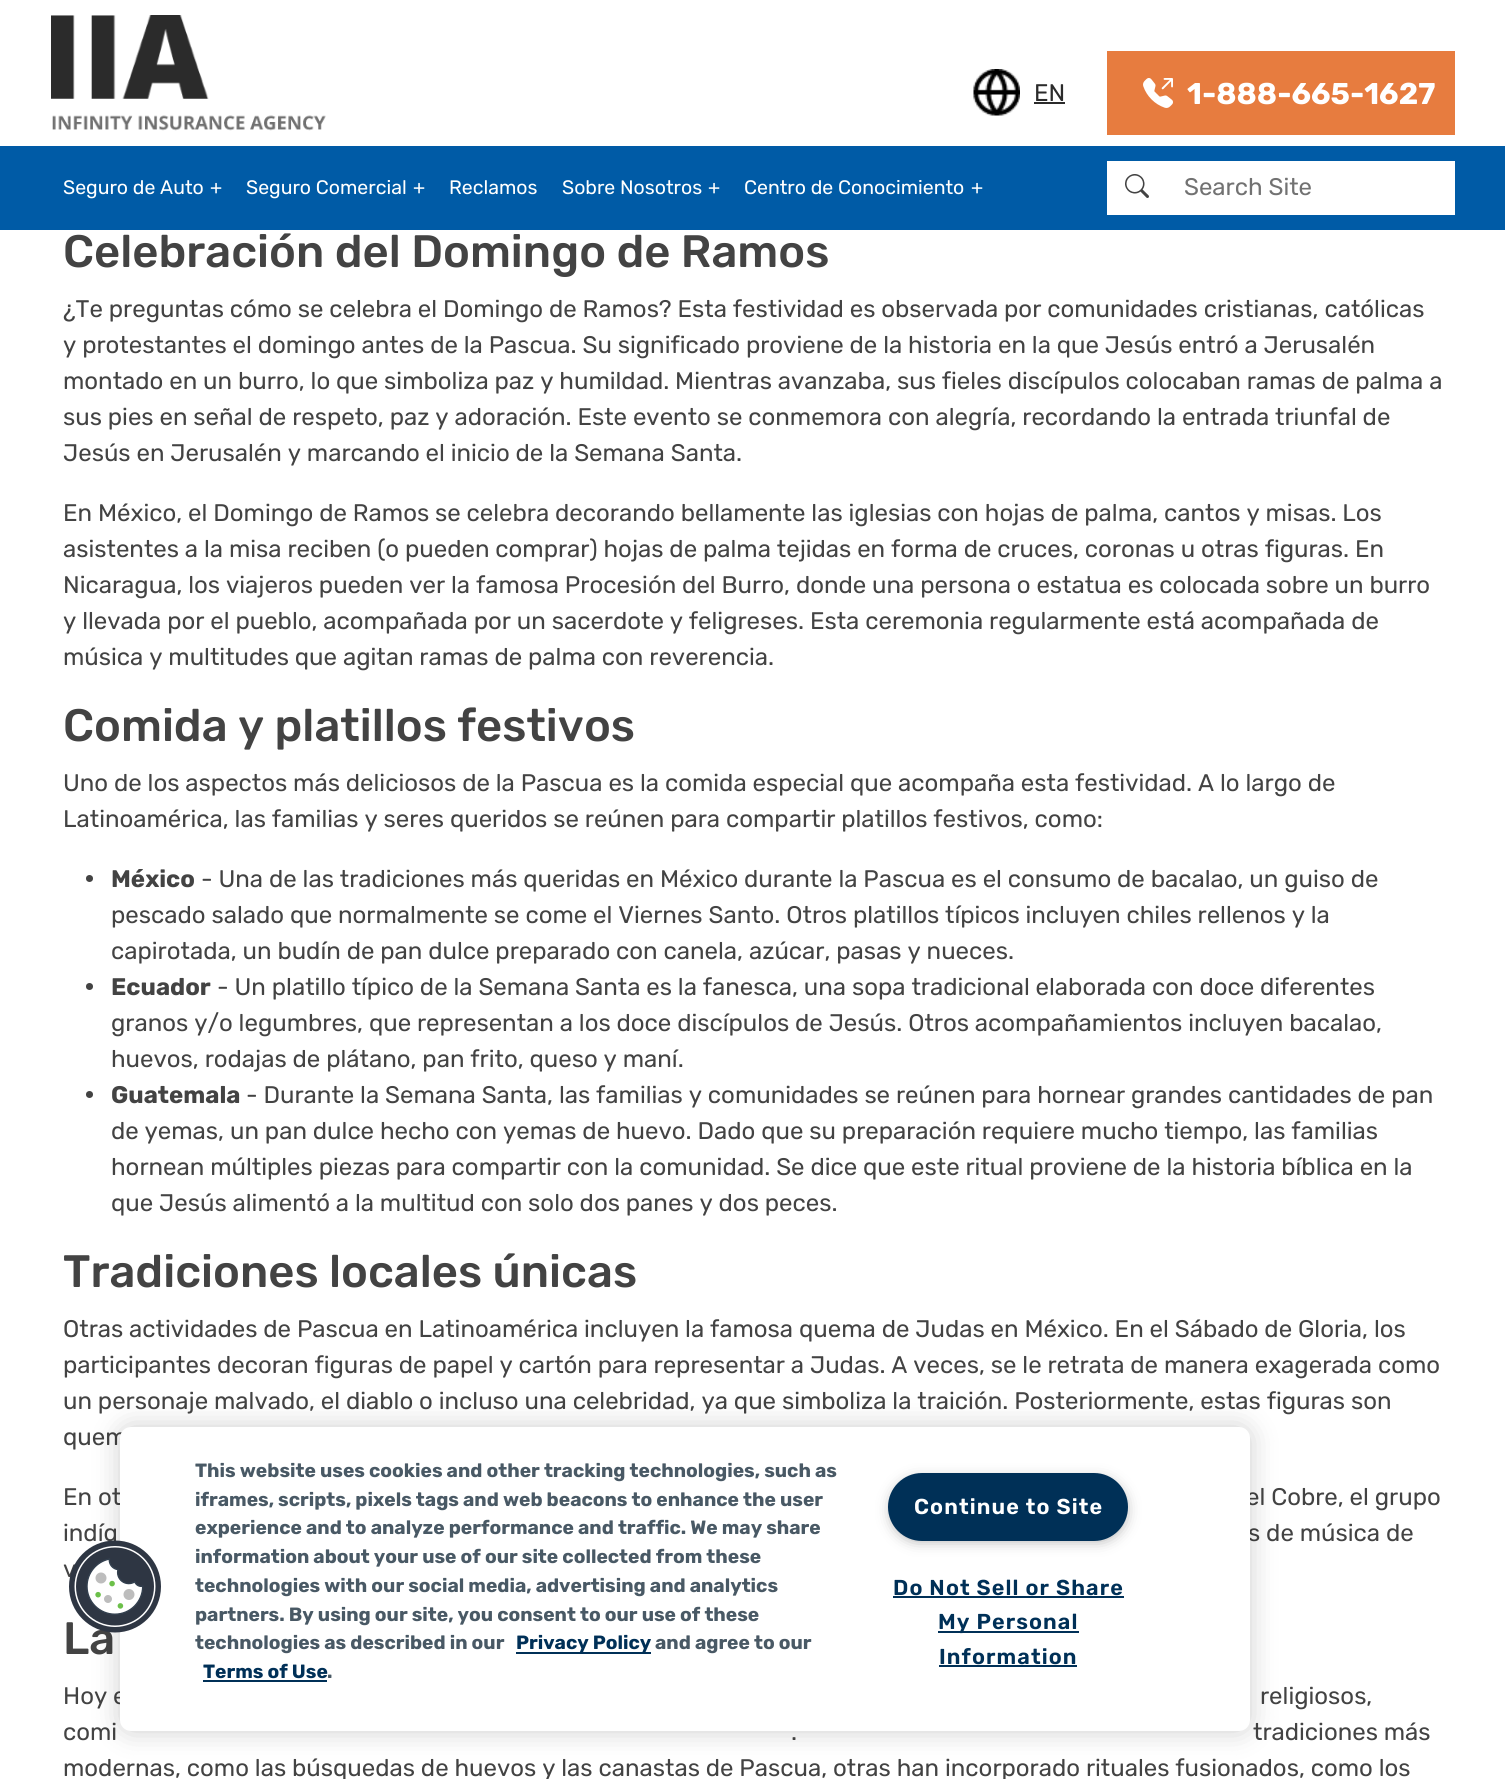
import math
import cairocffi as cairo

surface = cairo.ImageSurface(cairo.FORMAT_RGB24, 1505, 1779)
ctx = cairo.Context(surface)
options = cairo.FontOptions()
options.set_hint_metrics(cairo.HINT_METRICS_OFF)
options.set_hint_style(cairo.HINT_STYLE_NONE)
ctx.set_font_options(options)
ctx.set_miter_limit(4)


def rgb(r, g, b):
    ctx.set_source_rgb(r / 255, g / 255, b / 255)


def face(family, size, italic, bold):
    ctx.select_font_face(family, cairo.FONT_SLANT_ITALIC if italic else cairo.FONT_SLANT_NORMAL, cairo.FONT_WEIGHT_BOLD if bold else cairo.FONT_WEIGHT_NORMAL)
    ctx.set_font_size(size)


def label(x, y, s):
    ctx.move_to(x, y)
    ctx.show_text(s)


def tracked(x, y, s, letter, word):
    ctx.move_to(x, y)
    for ch in s:
        ctx.show_text(ch)
        ctx.rel_move_to(letter + word * (ch == ' '), 0)


def rect(x, y, w, h):
    ctx.rectangle(x, y, w, h)
    ctx.fill()


def rrect(x, y, w, h, r):
    ctx.new_sub_path()
    for i, (u, v) in enumerate([(x + w - r, y + h - r), (x + r, y + h - r), (x + r, y + r), (x + w - r, y + r)]):
        ctx.arc(u, v, r, i * math.pi / 2, (i + 1) * math.pi / 2)
    ctx.close_path()


def soft_shadow(x, y, w, h, r, blur, alpha):
    ctx.push_group_with_content(cairo.CONTENT_ALPHA)
    ctx.set_operator(cairo.OPERATOR_SOURCE)
    for i in range(15, -16, -2):
        e = blur * i / 6
        if min(w, h) + 2 * e > 0:
            ctx.set_source_rgba(0, 0, 0, alpha * math.erfc((i - 1) / 8.5) / 2)
            rrect(x - e, y - e, w + 2 * e, h + 2 * e, max(0, min(r + e + blur * .6, min(w, h) / 2 + e)))
            ctx.fill()
    ctx.mask(ctx.pop_group())


def image(path, x, y, w, h):
    ctx.save()
    ctx.set_source_surface(cairo.ImageSurface.create_from_png(path), x, y)
    ctx.rectangle(x, y, w, h)
    ctx.fill()
    ctx.restore()


rgb(255, 255, 255)
ctx.paint()
image('image0.png', 51, 15, 275, 116)
image('image1.png', 973, 69, 47, 47)
face('Rubik', 24, 0, 0)
rgb(43, 43, 43)
label(1034, 101, 'EN')
rect(1034, 102, 31, 2)
rgb(231, 124, 63)
rect(1107, 51, 348, 84)
image('image2.png', 1143, 78, 30, 30)
face('Rubik', 30, 0, 1)
rgb(255, 255, 255)
label(1187, 104, '1-888-665-1627')
rgb(0, 91, 166)
rect(0, 146, 1505, 84)
face('Rubik', 19.5, 0, 0)
rgb(255, 255, 255)
label(63, 194, 'Seguro de Auto')
label(210, 194, '+')
label(246, 194, 'Seguro Comercial')
label(413, 194, '+')
label(449, 194, 'Reclamos')
label(562, 194, 'Sobre Nosotros')
label(708, 194, '+')
label(744, 194, 'Centro de Conocimiento')
label(971, 194, '+')
rect(1107, 161, 348, 54)
image('image3.png', 1125, 174, 24, 24)
face('Rubik', 24, 0, 0)
rgb(114, 114, 114)
label(1184, 195, 'Search Site')
face('Rubik Medium', 45.4, 0, 0)
rgb(67, 67, 67)
label(63, 267, 'Celebración del Domingo de Ramos')
face('Rubik', 24, 0, 0)
label(63, 317, '¿Te preguntas cómo se celebra el Domingo de Ramos? Esta festividad es observada por comunidades cristianas, católicas')
label(63, 353, 'y protestantes el domingo antes de la Pascua. Su significado proviene de la historia en la que Jesús entró a Jerusalén')
label(63, 389, 'montado en un burro, lo que simboliza paz y humildad. Mientras avanzaba, sus fieles discípulos colocaban ramas de palma a')
label(63, 425, 'sus pies en señal de respeto, paz y adoración. Este evento se conmemora con alegría, recordando la entrada triunfal de')
label(63, 461, 'Jesús en Jerusalén y marcando el inicio de la Semana Santa.')
label(63, 521, 'En México, el Domingo de Ramos se celebra decorando bellamente las iglesias con hojas de palma, cantos y misas. Los')
label(63, 557, 'asistentes a la misa reciben (o pueden comprar) hojas de palma tejidas en forma de cruces, coronas u otras figuras. En')
label(63, 593, 'Nicaragua, los viajeros pueden ver la famosa Procesión del Burro, donde una persona o estatua es colocada sobre un burro')
label(63, 629, 'y llevada por el pueblo, acompañada por un sacerdote y feligreses. Esta ceremonia regularmente está acompañada de')
label(63, 665, 'música y multitudes que agitan ramas de palma con reverencia.')
face('Rubik Medium', 45.4, 0, 0)
label(63, 741, 'Comida y platillos festivos')
face('Rubik', 24, 0, 0)
label(63, 791, 'Uno de los aspectos más deliciosos de la Pascua es la comida especial que acompaña esta festividad. A lo largo de')
label(63, 827, 'Latinoamérica, las familias y seres queridos se reúnen para compartir platillos festivos, como:')
ctx.new_path()
ctx.arc(89.5, 878.5, 3.5, 0, 2 * math.pi)
ctx.fill()
face('Rubik', 24, 0, 1)
label(111, 887, 'México')
face('Rubik', 24, 0, 0)
label(201, 887, '- Una de las tradiciones más queridas en México durante la Pascua es el consumo de bacalao, un guiso de')
label(111, 923, 'pescado salado que normalmente se come el Viernes Santo. Otros platillos típicos incluyen chiles rellenos y la')
label(111, 959, 'capirotada, un budín de pan dulce preparado con canela, azúcar, pasas y nueces.')
ctx.new_path()
ctx.arc(89.5, 986.5, 3.5, 0, 2 * math.pi)
ctx.fill()
face('Rubik', 24, 0, 1)
label(111, 995, 'Ecuador')
face('Rubik', 24, 0, 0)
label(217, 995, '- Un platillo típico de la Semana Santa es la fanesca, una sopa tradicional elaborada con doce diferentes')
label(111, 1031, 'granos y/o legumbres, que representan a los doce discípulos de Jesús. Otros acompañamientos incluyen bacalao,')
label(111, 1067, 'huevos, rodajas de plátano, pan frito, queso y maní.')
ctx.new_path()
ctx.arc(89.5, 1094.5, 3.5, 0, 2 * math.pi)
ctx.fill()
face('Rubik', 24, 0, 1)
label(111, 1103, 'Guatemala')
face('Rubik', 24, 0, 0)
label(246, 1103, '- Durante la Semana Santa, las familias y comunidades se reúnen para hornear grandes cantidades de pan')
label(111, 1139, 'de yemas, un pan dulce hecho con yemas de huevo. Dado que su preparación requiere mucho tiempo, las familias')
label(111, 1175, 'hornean múltiples piezas para compartir con la comunidad. Se dice que este ritual proviene de la historia bíblica en la')
label(111, 1211, 'que Jesús alimentó a la multitud con solo dos panes y dos peces.')
face('Rubik Medium', 45.4, 0, 0)
label(63, 1287, 'Tradiciones locales únicas')
face('Rubik', 24, 0, 0)
label(63, 1337, 'Otras actividades de Pascua en Latinoamérica incluyen la famosa quema de Judas en México. En el Sábado de Gloria, los')
label(63, 1373, 'participantes decoran figuras de papel y cartón para representar a Judas. A veces, se le retrata de manera exagerada como')
label(63, 1409, 'un personaje malvado, el diablo o incluso una celebridad, ya que simboliza la traición. Posteriormente, estas figuras son')
label(63, 1445, 'quem')
label(63, 1505, 'En ot')
label(1246, 1505, 'el Cobre, el grupo')
label(63, 1541, 'indíg')
label(1248, 1541, 's de música de')
label(63, 1577, 'v')
face('Rubik Medium', 45.4, 0, 0)
label(63, 1654, 'La')
face('Rubik', 24, 0, 0)
label(63, 1704, 'Hoy e')
label(1260, 1704, 'religiosos,')
label(63, 1740, 'comi')
label(791, 1740, '.')
label(1253, 1740, 'tradiciones más')
label(63, 1776, 'modernas, como las búsquedas de huevos y las canastas de Pascua, otras han incorporado rituales fusionados, como los')
rgb(0, 0, 0)
soft_shadow(120, 1427, 1130, 304, 11, 13.5, 0.2)
rgb(255, 255, 255)
rrect(120, 1427, 1130, 304, 11)
ctx.fill()
image('image4.png', 69, 1540, 92, 93)
face('Rubik', 19.2, 0, 1)
rgb(73, 89, 101)
label(195, 1477, 'This website uses cookies and other tracking technologies, such as')
label(195, 1506, 'iframes, scripts, pixels tags and web beacons to enhance the user')
label(195, 1534, 'experience and to analyze performance and traffic. We may share')
label(195, 1563, 'information about your use of our site collected from these')
label(195, 1592, 'technologies with our social media, advertising and analytics')
label(195, 1621, 'partners. By using our site, you consent to our use of these')
label(195, 1649, 'technologies as described in our')
rgb(0, 48, 87)
rect(516, 1652, 135, 2)
label(516, 1649, 'Privacy Policy')
rgb(73, 89, 101)
label(655, 1649, 'and agree to our')
rgb(0, 48, 87)
label(203, 1678, 'Terms of Use')
rgb(73, 89, 101)
label(327, 1678, '.')
rgb(0, 48, 87)
rect(203, 1680, 124, 2)
rgb(153, 153, 153)
soft_shadow(893, 1481, 231, 58, 29, 7.5, 1)
rgb(0, 48, 87)
rrect(889, 1474, 238, 66, 33)
ctx.fill_preserve()
ctx.stroke()
face('Rubik SemiBold', 21.6, 0, 0)
rgb(255, 255, 255)
tracked(914, 1514, 'Continue to Site', 1.1, 0)
rgb(0, 48, 87)
tracked(893, 1595, 'Do Not Sell or Share', 1.1, 0)
rect(893, 1596, 231, 2)
rect(938, 1631, 141, 2)
tracked(938, 1629, 'My Personal', 1.1, 0)
tracked(939, 1664, 'Information', 1.1, 0)
rect(939, 1665, 138, 2)
surface.write_to_png('render.png')
